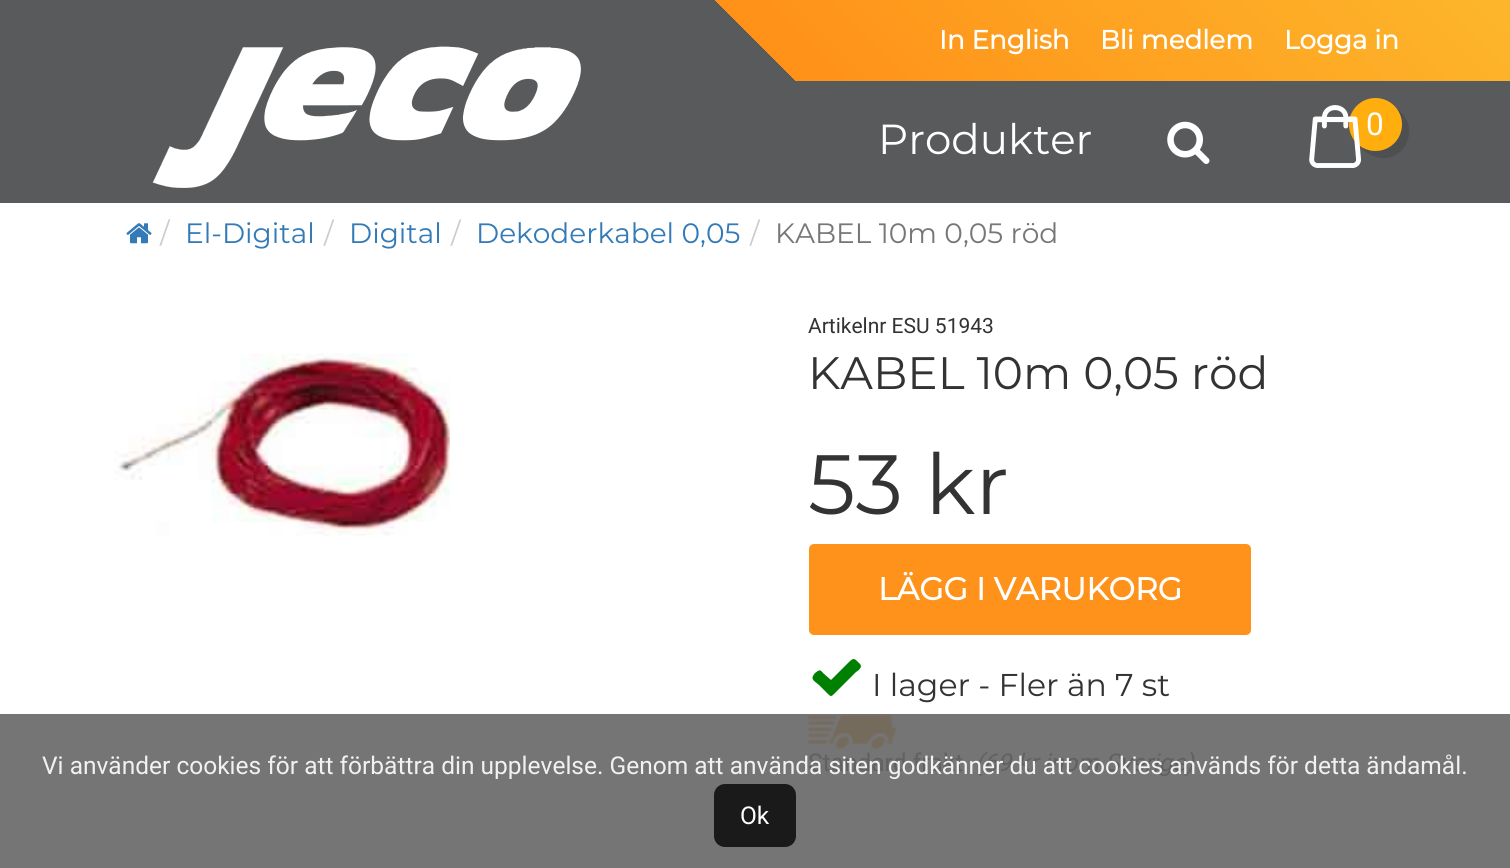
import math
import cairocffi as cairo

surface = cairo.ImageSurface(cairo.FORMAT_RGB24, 1510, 868)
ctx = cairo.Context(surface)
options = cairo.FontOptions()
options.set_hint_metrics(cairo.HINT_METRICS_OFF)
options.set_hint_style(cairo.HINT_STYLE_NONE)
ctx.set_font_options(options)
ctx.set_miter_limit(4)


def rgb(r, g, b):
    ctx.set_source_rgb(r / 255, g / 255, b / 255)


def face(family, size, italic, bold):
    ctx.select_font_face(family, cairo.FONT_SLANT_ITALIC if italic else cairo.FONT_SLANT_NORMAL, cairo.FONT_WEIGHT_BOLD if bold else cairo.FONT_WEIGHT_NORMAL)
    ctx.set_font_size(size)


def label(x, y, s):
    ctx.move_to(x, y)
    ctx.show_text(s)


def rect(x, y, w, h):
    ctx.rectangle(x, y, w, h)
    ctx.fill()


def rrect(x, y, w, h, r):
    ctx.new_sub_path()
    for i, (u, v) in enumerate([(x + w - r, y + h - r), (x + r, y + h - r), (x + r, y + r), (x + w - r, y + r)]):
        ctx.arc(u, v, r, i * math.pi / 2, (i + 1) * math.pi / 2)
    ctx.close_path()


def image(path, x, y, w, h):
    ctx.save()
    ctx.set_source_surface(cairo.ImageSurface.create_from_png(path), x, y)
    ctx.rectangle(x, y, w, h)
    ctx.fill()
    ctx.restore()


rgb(255, 255, 255)
ctx.paint()
gradient = cairo.LinearGradient(357, 438, 1153, -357)
gradient.add_color_stop_rgba(0, 0.349, 0.353, 0.357, 1)
gradient.add_color_stop_rgba(0.5, 0.349, 0.353, 0.357, 1)
gradient.add_color_stop_rgba(0.5, 1, 0.569, 0.098, 1)
gradient.add_color_stop_rgba(1, 0.992, 0.714, 0.169, 1)
ctx.set_source(gradient)
rect(0, 0, 1510, 81)
face('Montserrat', 26.25, 0, 1)
rgb(255, 255, 255)
label(939, 49, 'In English')
label(1100, 49, 'Bli medlem')
label(1284, 49, 'Logga in')
rgb(89, 90, 91)
rect(0, 81, 1510, 122)
image('image0.png', 152, 46, 429, 142)
face('Montserrat Thin', 42, 0, 0)
rgb(255, 255, 255)
label(878, 154, 'Produkter')
image('image1.png', 1167, 121, 43, 43)
rgb(78, 79, 80)
ctx.new_path()
ctx.move_to(1360, 145)
ctx.curve_to(1363, 151, 1369, 155, 1376, 157)
ctx.curve_to(1405, 165, 1422, 126, 1397, 109)
ctx.curve_to(1414, 134, 1383, 163, 1360, 145)
ctx.close_path()
ctx.fill()
rgb(255, 174, 14)
ctx.arc(1375.5, 124.5, 26.5, 0, 2 * math.pi)
ctx.fill()
image('image2.png', 1309, 105, 52, 63)
face('Roboto', 31.5, 0, 0)
rgb(255, 255, 255)
label(1366, 135, '0')
rgb(117, 117, 117)
rect(0, 714, 1510, 154)
image('image3.png', 126, 223, 26, 21)
face('Montserrat Thin', 28, 0, 0)
rgb(204, 204, 204)
label(160, 243, '/')
rgb(51, 122, 183)
label(185, 243, 'El-Digital')
rgb(204, 204, 204)
label(324, 243, '/')
rgb(51, 122, 183)
label(349, 243, 'Digital')
rgb(204, 204, 204)
label(451, 243, '/')
rgb(51, 122, 183)
label(476, 243, 'Dekoderkabel 0,05')
rgb(204, 204, 204)
label(750, 243, '/')
rgb(119, 119, 119)
label(775, 243, 'KABEL 10m 0,05 röd')
image('image4.png', 114, 353, 336, 183)
face('Roboto', 21, 0, 0)
rgb(51, 51, 51)
label(808, 333, 'Artikelnr ESU 51943')
face('Montserrat Thin', 45.5, 0, 0)
label(808, 389, 'KABEL 10m 0,05 röd')
face('Montserrat Thin', 84, 0, 0)
label(808, 514, '53 kr')
rgb(255, 146, 26)
rrect(809, 544, 442, 91, 5)
ctx.fill()
face('Montserrat', 31.5, 0, 1)
rgb(255, 255, 255)
label(878, 600, 'LÄGG I VARUKORG')
rgb(0, 128, 0)
ctx.new_path()
ctx.move_to(860, 664)
ctx.curve_to(863, 667, 858, 671, 856, 672)
ctx.line_to(835, 693)
ctx.curve_to(831, 697, 831, 697, 827, 693)
ctx.line_to(819, 685)
ctx.curve_to(813, 680, 810, 679, 815, 673)
ctx.curve_to(819, 670, 820, 669, 823, 673)
ctx.line_to(831, 680)
ctx.line_to(848, 663)
ctx.curve_to(854, 657, 854, 658, 860, 664)
ctx.close_path()
ctx.fill()
face('Montserrat Thin', 31.5, 0, 0)
rgb(51, 51, 51)
label(872, 696, 'I lager - Fler än 7 st')
image('image5.png', 808, 714, 88, 35)
face('Roboto', 24.5, 0, 0)
rgb(97, 97, 97)
label(808, 771, 'Standard frakt')
face('Roboto', 24.5, 1, 0)
label(975, 771, '(69 kr inom Sverige)')
face('Roboto', 24.5, 0, 0)
rgb(241, 241, 241)
label(42, 774, 'Vi använder cookies för att förbättra din upplevelse. Genom att använda siten godkänner du att cookies används för detta ändamål.')
rgb(26, 26, 26)
rrect(714, 784, 82, 63, 11)
ctx.fill()
rgb(255, 255, 255)
label(740, 824, 'Ok')
surface.write_to_png('render.png')
